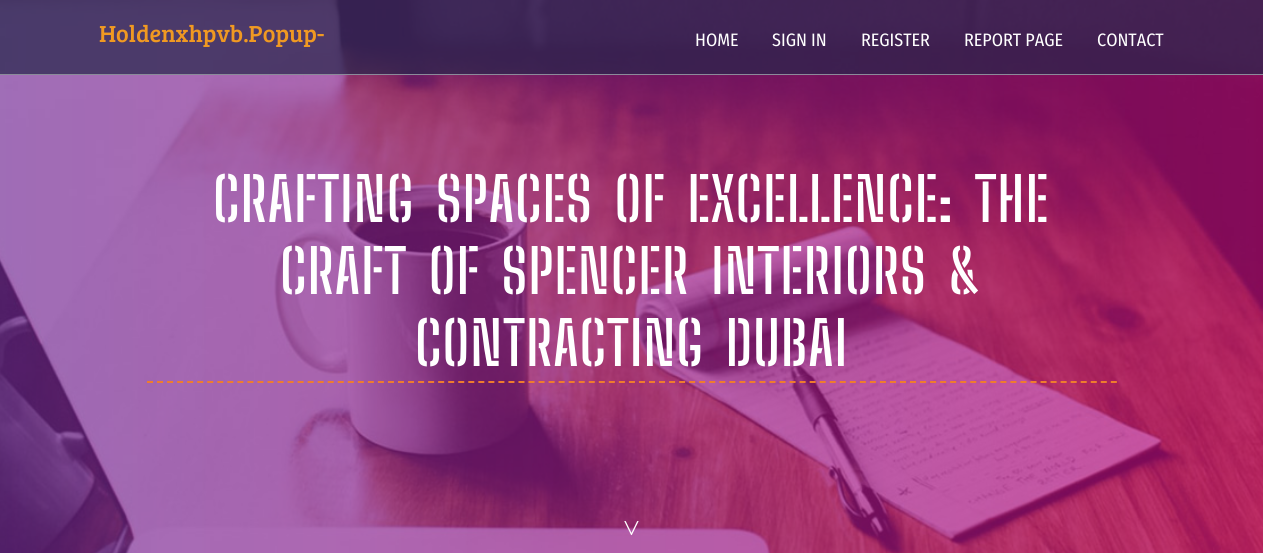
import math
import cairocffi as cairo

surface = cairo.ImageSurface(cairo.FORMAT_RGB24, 1263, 553)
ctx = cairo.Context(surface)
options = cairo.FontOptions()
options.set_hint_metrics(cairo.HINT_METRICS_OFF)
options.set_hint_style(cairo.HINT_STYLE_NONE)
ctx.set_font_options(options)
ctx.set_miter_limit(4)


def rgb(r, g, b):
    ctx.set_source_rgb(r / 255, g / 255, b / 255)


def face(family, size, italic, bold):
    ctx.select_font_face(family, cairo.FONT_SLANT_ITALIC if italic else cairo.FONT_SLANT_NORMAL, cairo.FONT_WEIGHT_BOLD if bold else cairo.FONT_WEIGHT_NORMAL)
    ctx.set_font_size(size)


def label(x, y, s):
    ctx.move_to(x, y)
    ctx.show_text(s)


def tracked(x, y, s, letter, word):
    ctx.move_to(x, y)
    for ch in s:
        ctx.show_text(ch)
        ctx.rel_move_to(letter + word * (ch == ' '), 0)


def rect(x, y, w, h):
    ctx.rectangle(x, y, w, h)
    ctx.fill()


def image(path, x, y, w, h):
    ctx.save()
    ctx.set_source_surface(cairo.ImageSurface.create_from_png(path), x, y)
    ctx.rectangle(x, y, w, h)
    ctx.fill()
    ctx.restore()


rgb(255, 255, 255)
ctx.paint()
image('image0.png', 0, 0, 1263, 553)
ctx.set_source_rgba(0.149, 0.149, 0.294, 0.7)
rect(0, 0, 1263, 74)
rgb(139, 139, 154)
rect(0, 74, 1263, 1)
face('Bree Serif', 24, 0, 0)
rgb(240, 153, 34)
label(99, 42, 'Holdenxhpvb.Popup-')
face('Fira Sans Condensed', 18, 0, 0)
rgb(255, 255, 255)
label(695, 46, 'HOME')
label(772, 46, 'SIGN IN')
label(861, 46, 'REGISTER')
label(964, 46, 'REPORT PAGE')
label(1097, 46, 'CONTACT')
ctx.new_path()
ctx.move_to(147, 382)
ctx.line_to(1117, 382)
rgb(239, 124, 45)
ctx.set_dash([6, 4.04])
ctx.stroke()
face('Big Shoulders Stencil Text Thin', 60, 0, 0)
rgb(255, 255, 255)
tracked(213, 222, 'CRAFTING SPACES OF EXCELLENCE: THE', 1, 8)
tracked(280, 294, 'CRAFT OF SPENCER INTERIORS &', 1, 8)
tracked(415, 366, 'CONTRACTING DUBAI', 1, 8)
face('Liberation Serif', 30, 0, 0)
label(623, 538, '˅')
surface.write_to_png('render.png')
